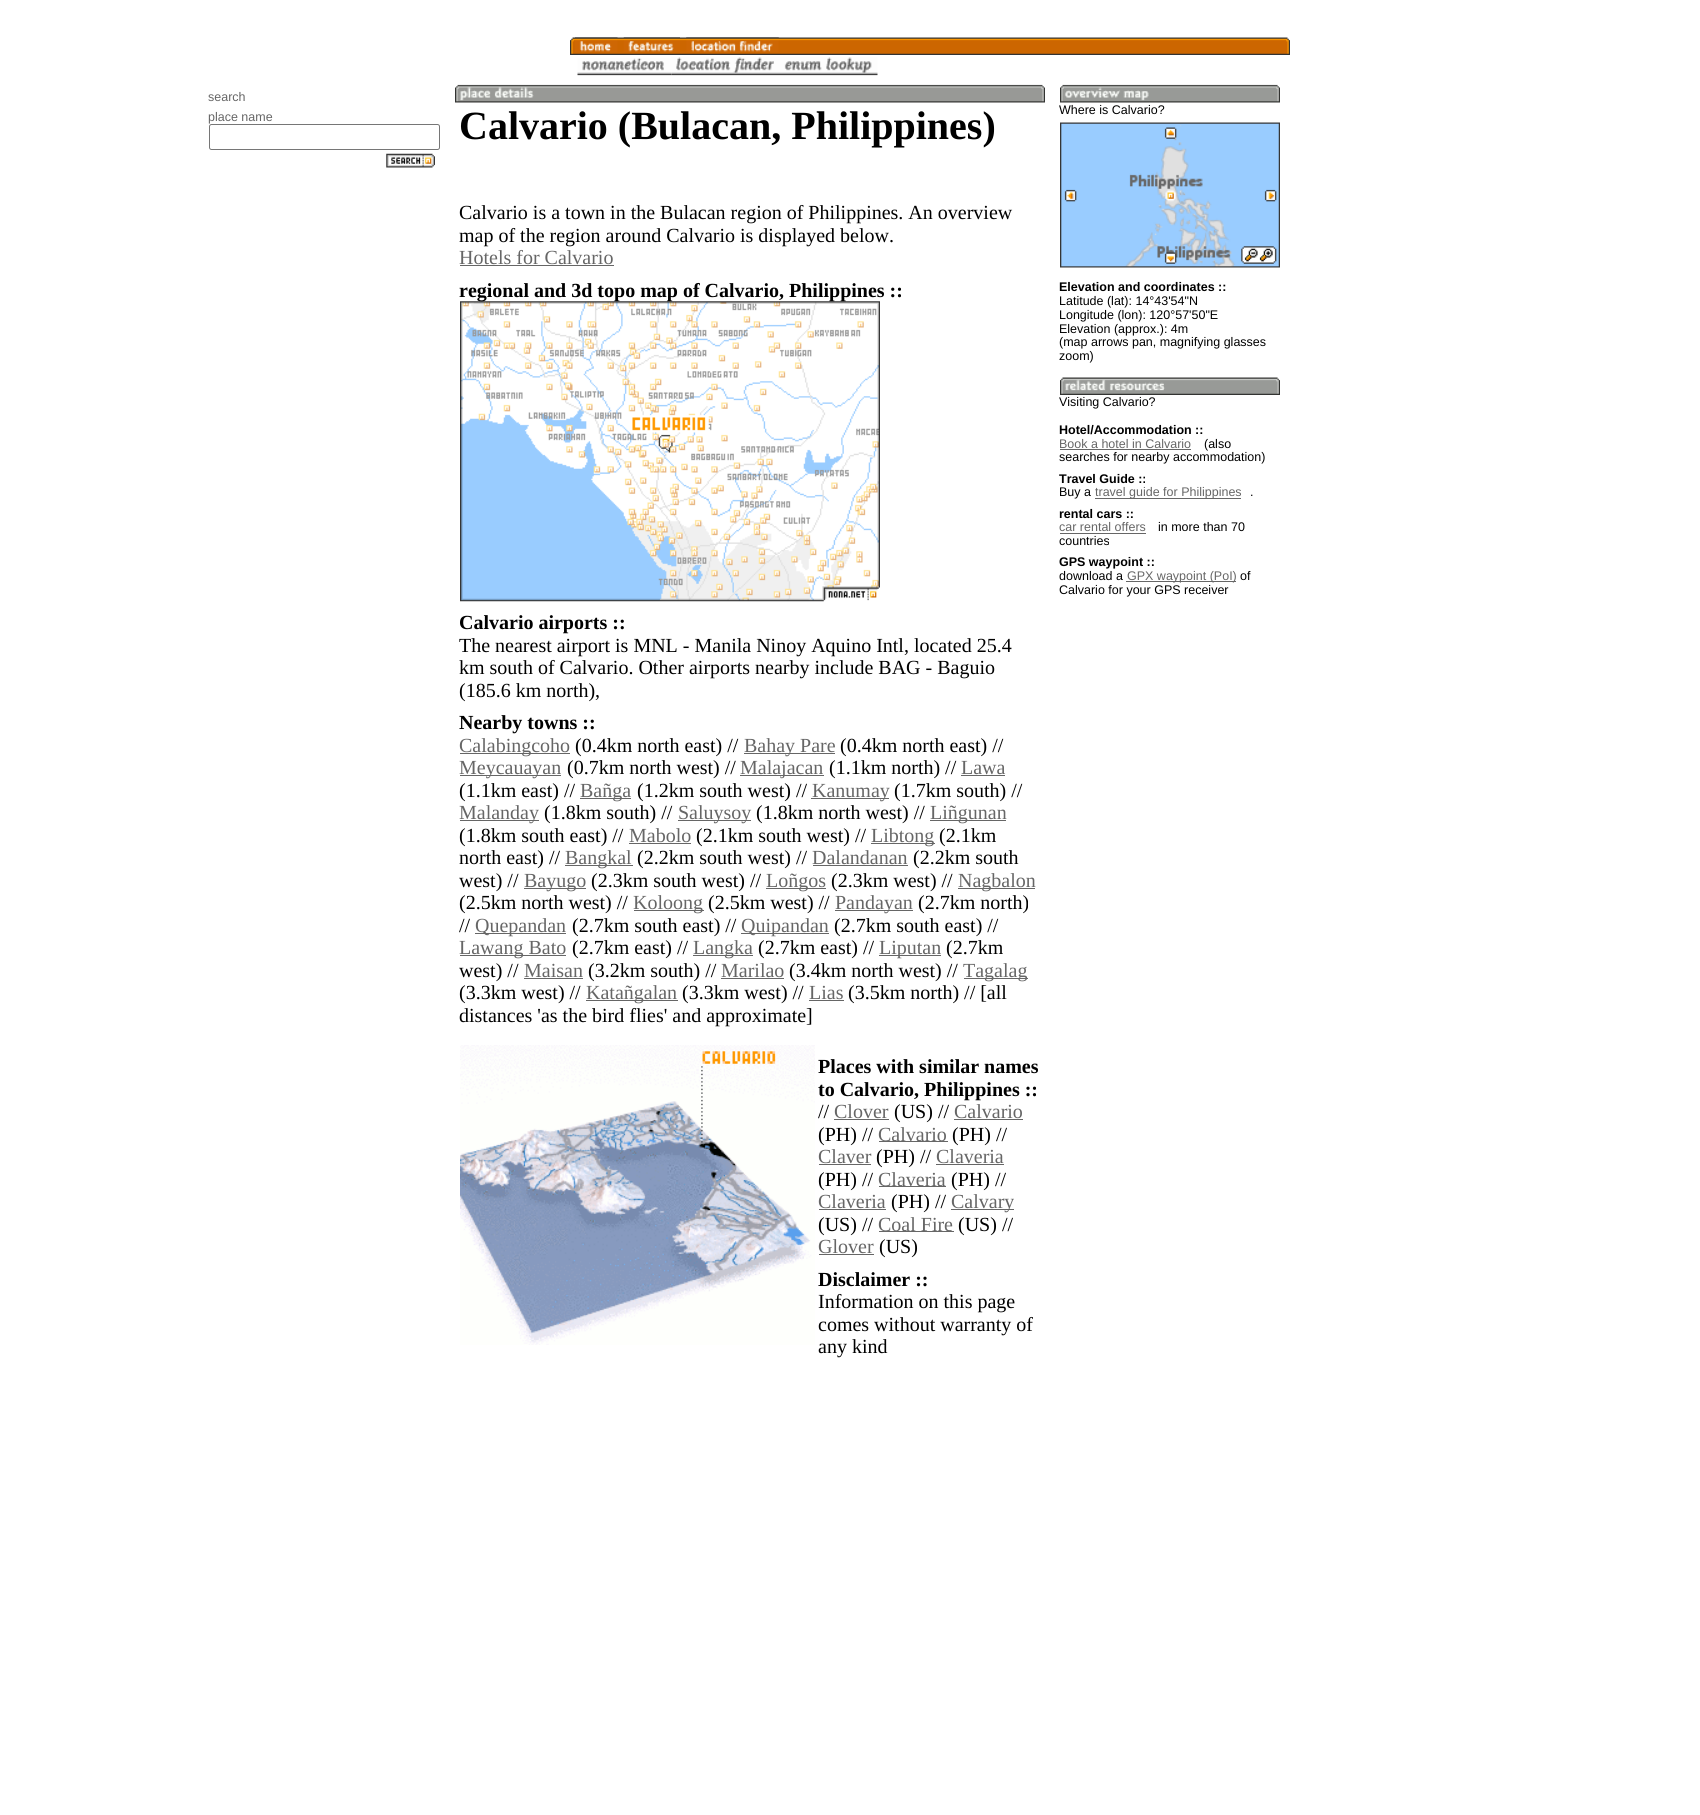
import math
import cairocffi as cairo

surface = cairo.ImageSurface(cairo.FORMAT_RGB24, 1700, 1815)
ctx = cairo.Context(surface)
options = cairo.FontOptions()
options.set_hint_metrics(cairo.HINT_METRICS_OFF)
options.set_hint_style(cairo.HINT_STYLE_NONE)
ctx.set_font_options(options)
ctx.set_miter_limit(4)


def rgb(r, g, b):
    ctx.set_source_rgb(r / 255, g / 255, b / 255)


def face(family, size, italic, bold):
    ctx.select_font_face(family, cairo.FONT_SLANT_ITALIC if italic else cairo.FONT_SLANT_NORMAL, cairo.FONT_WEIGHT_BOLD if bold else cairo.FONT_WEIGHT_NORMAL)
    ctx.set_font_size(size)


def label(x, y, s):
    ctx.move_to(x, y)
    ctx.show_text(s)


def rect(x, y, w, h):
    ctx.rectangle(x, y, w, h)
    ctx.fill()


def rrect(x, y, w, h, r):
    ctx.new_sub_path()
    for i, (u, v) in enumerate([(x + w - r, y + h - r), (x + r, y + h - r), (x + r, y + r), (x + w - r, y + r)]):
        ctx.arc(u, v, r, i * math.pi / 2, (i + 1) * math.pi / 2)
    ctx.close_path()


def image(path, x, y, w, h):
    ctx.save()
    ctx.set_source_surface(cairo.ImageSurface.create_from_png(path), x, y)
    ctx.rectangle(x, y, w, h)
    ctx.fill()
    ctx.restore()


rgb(255, 255, 255)
ctx.paint()
image('image0.png', 570, 37, 720, 18)
image('image1.png', 575, 37, 43, 15)
image('image2.png', 623, 37, 57, 15)
image('image3.png', 686, 37, 93, 15)
image('image4.png', 577, 58, 95, 18)
image('image5.png', 671, 57, 109, 19)
image('image6.png', 780, 57, 98, 19)
face('Liberation Sans', 12.5, 0, 0)
rgb(102, 102, 102)
label(208, 101, 'search')
label(208, 121, 'place name')
rrect(209.5, 124.5, 230, 25, 2)
rgb(118, 118, 118)
ctx.set_line_width(1)
ctx.stroke()
image('image7.png', 386, 153, 49, 15)
image('image8.png', 455, 84, 590, 19)
face('Liberation Serif', 40, 0, 1)
rgb(0, 0, 0)
label(459, 139, 'Calvario (Bulacan, Philippines)')
face('Liberation Serif', 20, 0, 0)
label(459, 219, 'Calvario is a town in the Bulacan region of Philippines. An overview')
label(459, 242, 'map of the region around Calvario is displayed below.')
rgb(102, 102, 102)
label(459, 264, 'Hotels for Calvario')
rect(460, 265, 154, 1)
image('image9.png', 460, 301, 420, 301)
face('Liberation Serif', 20, 0, 1)
rgb(0, 0, 0)
label(459, 297, 'regional and 3d topo map of Calvario, Philippines ::')
label(459, 629, 'Calvario airports ::')
face('Liberation Serif', 20, 0, 0)
label(459, 652, 'The nearest airport is MNL - Manila Ninoy Aquino Intl, located 25.4')
label(459, 674, 'km south of Calvario. Other airports nearby include BAG - Baguio')
label(459, 697, '(185.6 km north),')
face('Liberation Serif', 20, 0, 1)
label(459, 729, 'Nearby towns ::')
rgb(102, 102, 102)
rect(460, 753, 110, 1)
face('Liberation Serif', 20, 0, 0)
label(459, 752, 'Calabingcoho')
rgb(0, 0, 0)
label(575, 752, '(0.4km north east) //')
rgb(102, 102, 102)
rect(744, 753, 91, 1)
label(744, 752, 'Bahay Pare')
rgb(0, 0, 0)
label(840, 752, '(0.4km north east) //')
rgb(102, 102, 102)
rect(460, 775, 101, 1)
label(459, 774, 'Meycauayan')
rgb(0, 0, 0)
label(567, 774, '(0.7km north west) //')
rgb(102, 102, 102)
rect(740, 775, 84, 1)
label(740, 774, 'Malajacan')
rgb(0, 0, 0)
label(829, 774, '(1.1km north) //')
rgb(102, 102, 102)
label(961, 774, 'Lawa')
rect(961, 775, 44, 1)
rgb(0, 0, 0)
label(459, 797, '(1.1km east) //')
rgb(102, 102, 102)
rect(580, 798, 51, 1)
label(580, 797, 'Bañga')
rgb(0, 0, 0)
label(637, 797, '(1.2km south west) //')
rgb(102, 102, 102)
rect(811, 798, 78, 1)
label(812, 797, 'Kanumay')
rgb(0, 0, 0)
label(894, 797, '(1.7km south) //')
rgb(102, 102, 102)
rect(460, 820, 79, 1)
label(459, 819, 'Malanday')
rgb(0, 0, 0)
label(544, 819, '(1.8km south) //')
rgb(102, 102, 102)
rect(678, 820, 73, 1)
label(678, 819, 'Saluysoy')
rgb(0, 0, 0)
label(756, 819, '(1.8km north west) //')
rgb(102, 102, 102)
rect(930, 820, 76, 1)
label(930, 819, 'Liñgunan')
rgb(0, 0, 0)
label(459, 842, '(1.8km south east) //')
rgb(102, 102, 102)
label(629, 842, 'Mabolo')
rect(629, 843, 62, 1)
rgb(0, 0, 0)
label(696, 842, '(2.1km south west) //')
rgb(102, 102, 102)
rect(871, 843, 64, 1)
label(871, 842, 'Libtong')
rgb(0, 0, 0)
label(939, 842, '(2.1km')
label(459, 864, 'north east) //')
rgb(102, 102, 102)
rect(565, 865, 68, 1)
label(565, 864, 'Bangkal')
rgb(0, 0, 0)
label(637, 864, '(2.2km south west) //')
rgb(102, 102, 102)
label(812, 864, 'Dalandanan')
rect(813, 865, 95, 1)
rgb(0, 0, 0)
label(913, 864, '(2.2km south')
label(459, 887, 'west) //')
rgb(102, 102, 102)
rect(524, 888, 62, 1)
label(524, 887, 'Bayugo')
rgb(0, 0, 0)
label(591, 887, '(2.3km south west) //')
rgb(102, 102, 102)
rect(766, 888, 60, 1)
label(766, 887, 'Loñgos')
rgb(0, 0, 0)
label(831, 887, '(2.3km west) //')
rgb(102, 102, 102)
rect(958, 888, 77, 1)
label(958, 887, 'Nagbalon')
rgb(0, 0, 0)
label(459, 909, '(2.5km north west) //')
rgb(102, 102, 102)
rect(634, 910, 70, 1)
label(633, 909, 'Koloong')
rgb(0, 0, 0)
label(708, 909, '(2.5km west) //')
rgb(102, 102, 102)
rect(835, 910, 78, 1)
label(835, 909, 'Pandayan')
rgb(0, 0, 0)
label(918, 909, '(2.7km north)')
label(459, 932, '//')
rgb(102, 102, 102)
rect(475, 933, 91, 1)
label(475, 932, 'Quepandan')
rgb(0, 0, 0)
label(572, 932, '(2.7km south east) //')
rgb(102, 102, 102)
rect(741, 933, 88, 1)
label(741, 932, 'Quipandan')
rgb(0, 0, 0)
label(834, 932, '(2.7km south east) //')
rgb(102, 102, 102)
rect(460, 955, 106, 1)
label(459, 954, 'Lawang Bato')
rgb(0, 0, 0)
label(572, 954, '(2.7km east) //')
rgb(102, 102, 102)
rect(693, 955, 60, 1)
label(693, 954, 'Langka')
rgb(0, 0, 0)
label(758, 954, '(2.7km east) //')
rgb(102, 102, 102)
rect(879, 955, 62, 1)
label(879, 954, 'Liputan')
rgb(0, 0, 0)
label(946, 954, '(2.7km')
label(459, 977, 'west) //')
rgb(102, 102, 102)
label(524, 977, 'Maisan')
rect(524, 978, 59, 1)
rgb(0, 0, 0)
label(588, 977, '(3.2km south) //')
rgb(102, 102, 102)
label(721, 977, 'Marilao')
rect(721, 978, 63, 1)
rgb(0, 0, 0)
label(789, 977, '(3.4km north west) //')
rgb(102, 102, 102)
rect(964, 978, 64, 1)
label(963, 977, 'Tagalag')
rgb(0, 0, 0)
label(459, 999, '(3.3km west) //')
rgb(102, 102, 102)
rect(586, 1000, 92, 1)
label(586, 999, 'Katañgalan')
rgb(0, 0, 0)
label(682, 999, '(3.3km west) //')
rgb(102, 102, 102)
label(809, 999, 'Lias')
rect(809, 1000, 35, 1)
rgb(0, 0, 0)
label(848, 999, '(3.5km north) // [all')
label(459, 1022, 'distances \'as the bird flies\' and approximate]')
image('image10.png', 460, 1045, 355, 300)
face('Liberation Serif', 20, 0, 1)
label(818, 1073, 'Places with similar names')
label(818, 1096, 'to Calvario, Philippines ::')
face('Liberation Serif', 20, 0, 0)
label(818, 1118, '//')
rgb(102, 102, 102)
label(834, 1118, 'Clover')
rect(834, 1119, 55, 1)
rgb(0, 0, 0)
label(894, 1118, '(US) //')
rgb(102, 102, 102)
label(954, 1118, 'Calvario')
rect(954, 1119, 69, 1)
rgb(0, 0, 0)
label(818, 1141, '(PH) //')
rgb(102, 102, 102)
rect(879, 1141, 69, 1)
label(878, 1141, 'Calvario')
rgb(0, 0, 0)
label(952, 1141, '(PH) //')
rgb(102, 102, 102)
label(818, 1163, 'Claver')
rect(819, 1164, 52, 1)
rgb(0, 0, 0)
label(876, 1163, '(PH) //')
rgb(102, 102, 102)
label(936, 1163, 'Claveria')
rect(936, 1164, 68, 1)
rgb(0, 0, 0)
label(818, 1186, '(PH) //')
rgb(102, 102, 102)
rect(879, 1186, 67, 1)
label(878, 1186, 'Claveria')
rgb(0, 0, 0)
label(951, 1186, '(PH) //')
rgb(102, 102, 102)
label(818, 1208, 'Claveria')
rect(819, 1209, 67, 1)
rgb(0, 0, 0)
label(891, 1208, '(PH) //')
rgb(102, 102, 102)
rect(951, 1209, 63, 1)
label(951, 1208, 'Calvary')
rgb(0, 0, 0)
label(818, 1231, '(US) //')
rgb(102, 102, 102)
rect(879, 1231, 75, 1)
label(878, 1231, 'Coal Fire')
rgb(0, 0, 0)
label(958, 1231, '(US) //')
rgb(102, 102, 102)
label(818, 1253, 'Glover')
rect(819, 1254, 55, 1)
rgb(0, 0, 0)
label(879, 1253, '(US)')
face('Liberation Serif', 20, 0, 1)
label(818, 1286, 'Disclaimer ::')
face('Liberation Serif', 20, 0, 0)
label(818, 1308, 'Information on this page')
label(818, 1331, 'comes without warranty of')
label(818, 1353, 'any kind')
image('image11.png', 1060, 84, 220, 19)
face('Liberation Sans', 12.5, 0, 0)
label(1059, 114, 'Where is Calvario?')
image('image12.png', 1060, 122, 220, 146)
face('Liberation Sans', 12.5, 0, 1)
label(1059, 291, 'Elevation and coordinates ::')
face('Liberation Sans', 12.5, 0, 0)
label(1059, 305, 'Latitude (lat): 14°43\'54"N')
label(1059, 319, 'Longitude (lon): 120°57\'50"E')
label(1059, 333, 'Elevation (approx.): 4m')
label(1059, 346, '(map arrows pan, magnifying glasses')
label(1059, 360, 'zoom)')
image('image13.png', 1060, 377, 220, 18)
label(1059, 406, 'Visiting Calvario?')
face('Liberation Sans', 12.5, 0, 1)
label(1059, 434, 'Hotel/Accommodation ::')
face('Liberation Sans', 12.5, 0, 0)
rgb(102, 102, 102)
label(1059, 448, 'Book a hotel in Calvario')
rect(1060, 449, 131, 1)
rgb(0, 0, 0)
label(1204, 448, '(also')
label(1059, 461, 'searches for nearby accommodation)')
face('Liberation Sans', 12.5, 0, 1)
label(1059, 483, 'Travel Guide ::')
face('Liberation Sans', 12.5, 0, 0)
label(1059, 496, 'Buy a')
rgb(102, 102, 102)
rect(1095, 498, 146, 1)
label(1095, 496, 'travel guide for Philippines')
rgb(0, 0, 0)
label(1250, 496, '.')
face('Liberation Sans', 12.5, 0, 1)
label(1059, 518, 'rental cars ::')
face('Liberation Sans', 12.5, 0, 0)
rgb(102, 102, 102)
label(1059, 531, 'car rental offers')
rect(1060, 533, 86, 1)
rgb(0, 0, 0)
label(1158, 531, 'in more than 70')
label(1059, 545, 'countries')
face('Liberation Sans', 12.5, 0, 1)
label(1059, 566, 'GPS waypoint ::')
face('Liberation Sans', 12.5, 0, 0)
label(1059, 580, 'download a')
rgb(102, 102, 102)
rect(1126, 581, 110, 1)
label(1127, 580, 'GPX waypoint (PoI)')
rgb(0, 0, 0)
label(1240, 580, 'of')
label(1059, 594, 'Calvario for your GPS receiver')
surface.write_to_png('render.png')
